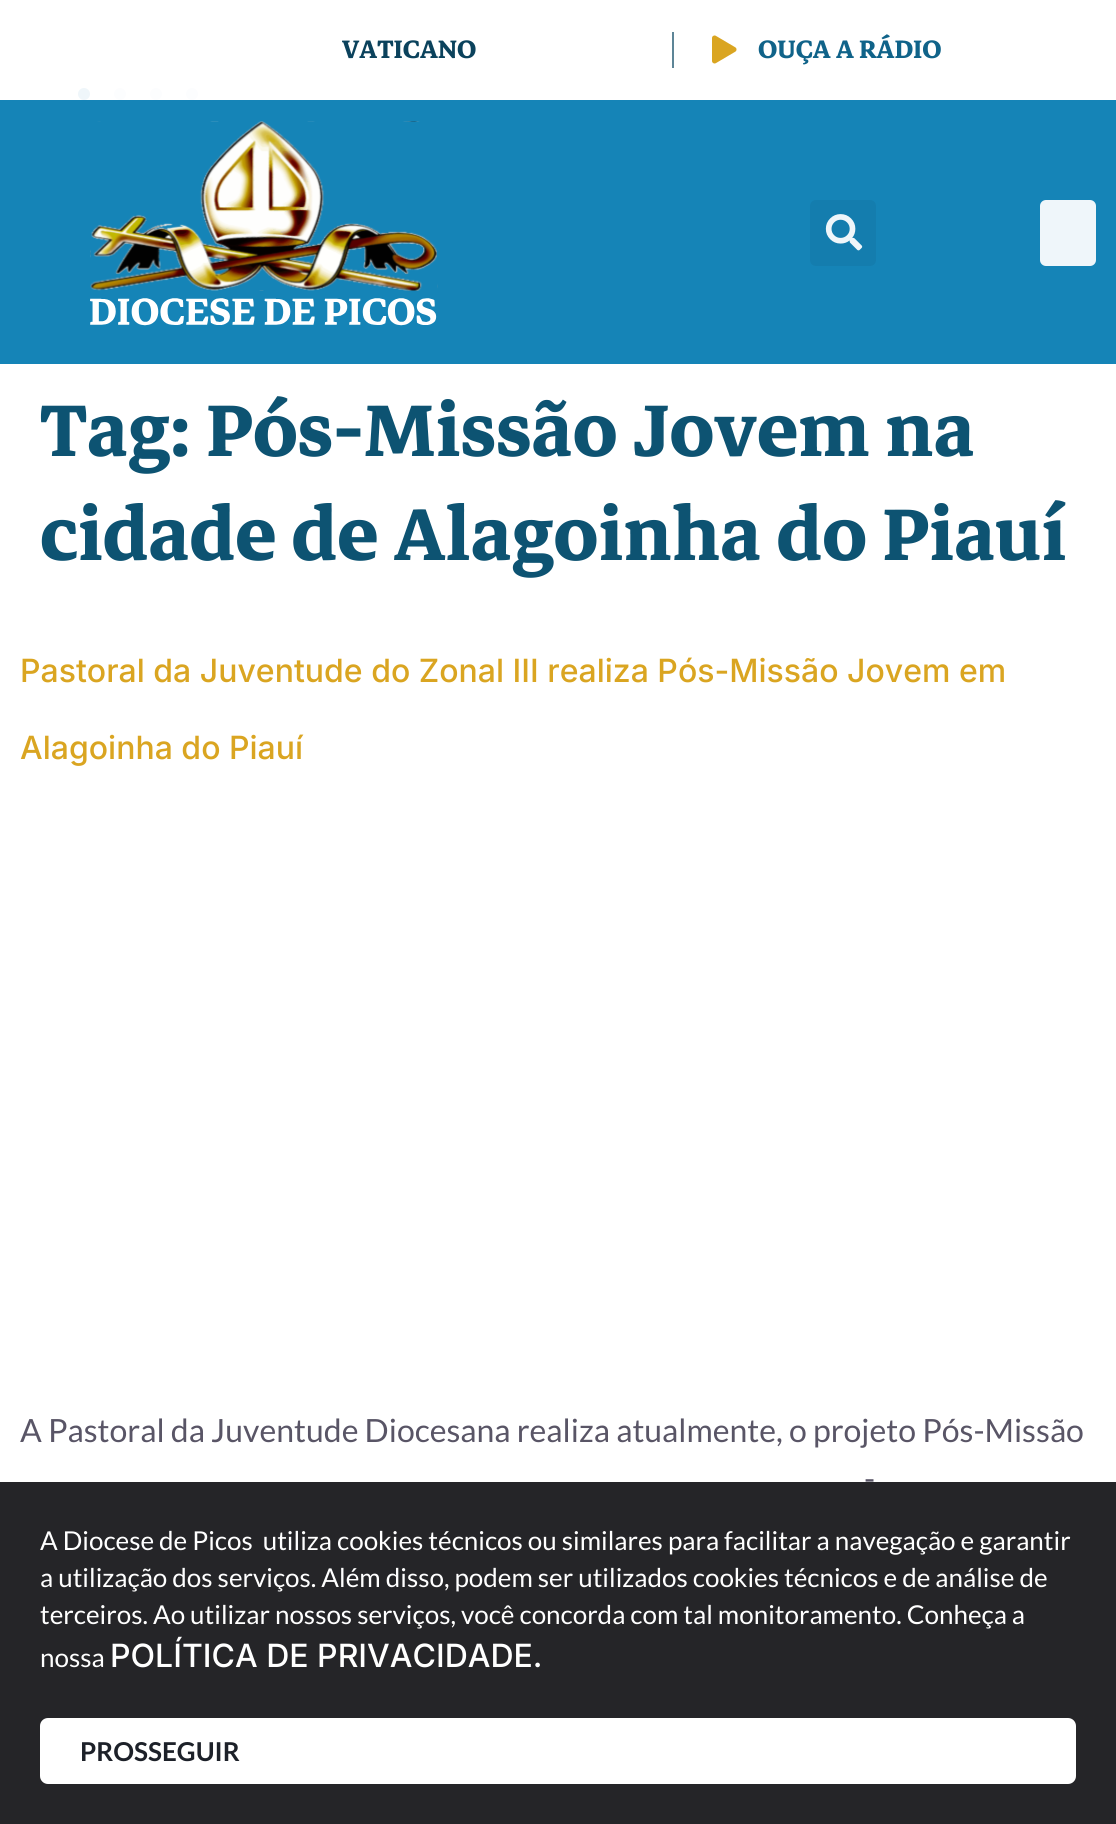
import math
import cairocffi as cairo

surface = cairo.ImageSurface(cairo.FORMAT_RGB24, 1116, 1824)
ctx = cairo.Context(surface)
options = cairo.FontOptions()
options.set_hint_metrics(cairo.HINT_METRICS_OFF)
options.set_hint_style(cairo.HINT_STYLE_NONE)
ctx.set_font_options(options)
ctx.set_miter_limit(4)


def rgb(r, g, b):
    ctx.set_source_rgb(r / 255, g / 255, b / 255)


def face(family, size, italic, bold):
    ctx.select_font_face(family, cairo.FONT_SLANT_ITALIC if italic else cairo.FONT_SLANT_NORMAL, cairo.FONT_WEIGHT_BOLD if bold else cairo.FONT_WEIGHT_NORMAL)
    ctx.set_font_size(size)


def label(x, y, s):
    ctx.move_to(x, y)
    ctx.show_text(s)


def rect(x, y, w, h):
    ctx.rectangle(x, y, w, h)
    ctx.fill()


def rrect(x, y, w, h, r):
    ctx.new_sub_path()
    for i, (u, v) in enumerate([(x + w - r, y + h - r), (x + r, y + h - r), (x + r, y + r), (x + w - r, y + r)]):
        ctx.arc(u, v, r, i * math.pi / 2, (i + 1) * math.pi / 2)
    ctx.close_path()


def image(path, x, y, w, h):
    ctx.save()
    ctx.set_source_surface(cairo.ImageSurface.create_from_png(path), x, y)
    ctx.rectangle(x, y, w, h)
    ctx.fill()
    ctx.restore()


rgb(255, 255, 255)
ctx.paint()
rgb(93, 133, 151)
rect(672, 32, 2, 36)
face('Markazi Text', 36, 0, 1)
rgb(11, 66, 92)
label(342, 58, 'VATICANO')
rgb(239, 246, 250)
ctx.new_path()
ctx.arc(84, 94, 6, 0, 2 * math.pi)
ctx.fill()
rgb(252, 253, 254)
ctx.arc(120, 94, 6, 0, 2 * math.pi)
ctx.fill()
ctx.arc(156, 94, 6, 0, 2 * math.pi)
ctx.fill()
ctx.arc(192, 94, 6, 0, 2 * math.pi)
ctx.fill()
image('image0.png', 712, 35, 25, 29)
rgb(16, 99, 137)
label(758, 58, 'OUÇA A RÁDIO')
rgb(21, 132, 183)
rect(0, 100, 1116, 264)
image('image1.png', 90, 121, 348, 205)
rgb(20, 125, 174)
rrect(810, 200, 66, 66, 6)
ctx.fill()
image('image2.png', 825, 214, 38, 37)
rgb(239, 246, 250)
rrect(1040, 200, 56, 66, 6)
ctx.fill()
face('Markazi Text', 104, 0, 1)
rgb(13, 83, 114)
label(40, 456, 'Tag: Pós-Missão Jovem na')
label(40, 560, 'cidade de Alagoinha do Piauí')
face('Inter Medium', 32, 0, 0)
rgb(218, 165, 33)
label(20, 682, 'Pastoral da Juventude do Zonal III realiza Pós-Missão Jovem em')
label(20, 759, 'Alagoinha do Piauí')
face('Lato', 32, 0, 0)
rgb(89, 85, 102)
label(20, 1442, 'A Pastoral da Juventude Diocesana realiza atualmente, o projeto Pós-Missão')
label(864, 1490, '-')
rgb(37, 37, 40)
rect(0, 1482, 1116, 342)
face('Lato', 26, 0, 0)
rgb(255, 255, 255)
label(40, 1550, 'A Diocese de Picos  utiliza cookies técnicos ou similares para facilitar a navegação e garantir')
label(40, 1587, 'a utilização dos serviços. Além disso, podem ser utilizados cookies técnicos e de análise de')
label(40, 1624, 'terceiros. Ao utilizar nossos serviços, você concorda com tal monitoramento. Conheça a')
label(40, 1667, 'nossa')
face('Inter Medium', 32, 0, 0)
label(110, 1667, 'POLÍTICA DE PRIVACIDADE.')
rrect(40, 1718, 1036, 66, 8)
ctx.fill()
face('Lato', 26, 0, 1)
rgb(29, 33, 41)
label(80, 1761, 'PROSSEGUIR')
surface.write_to_png('render.png')
